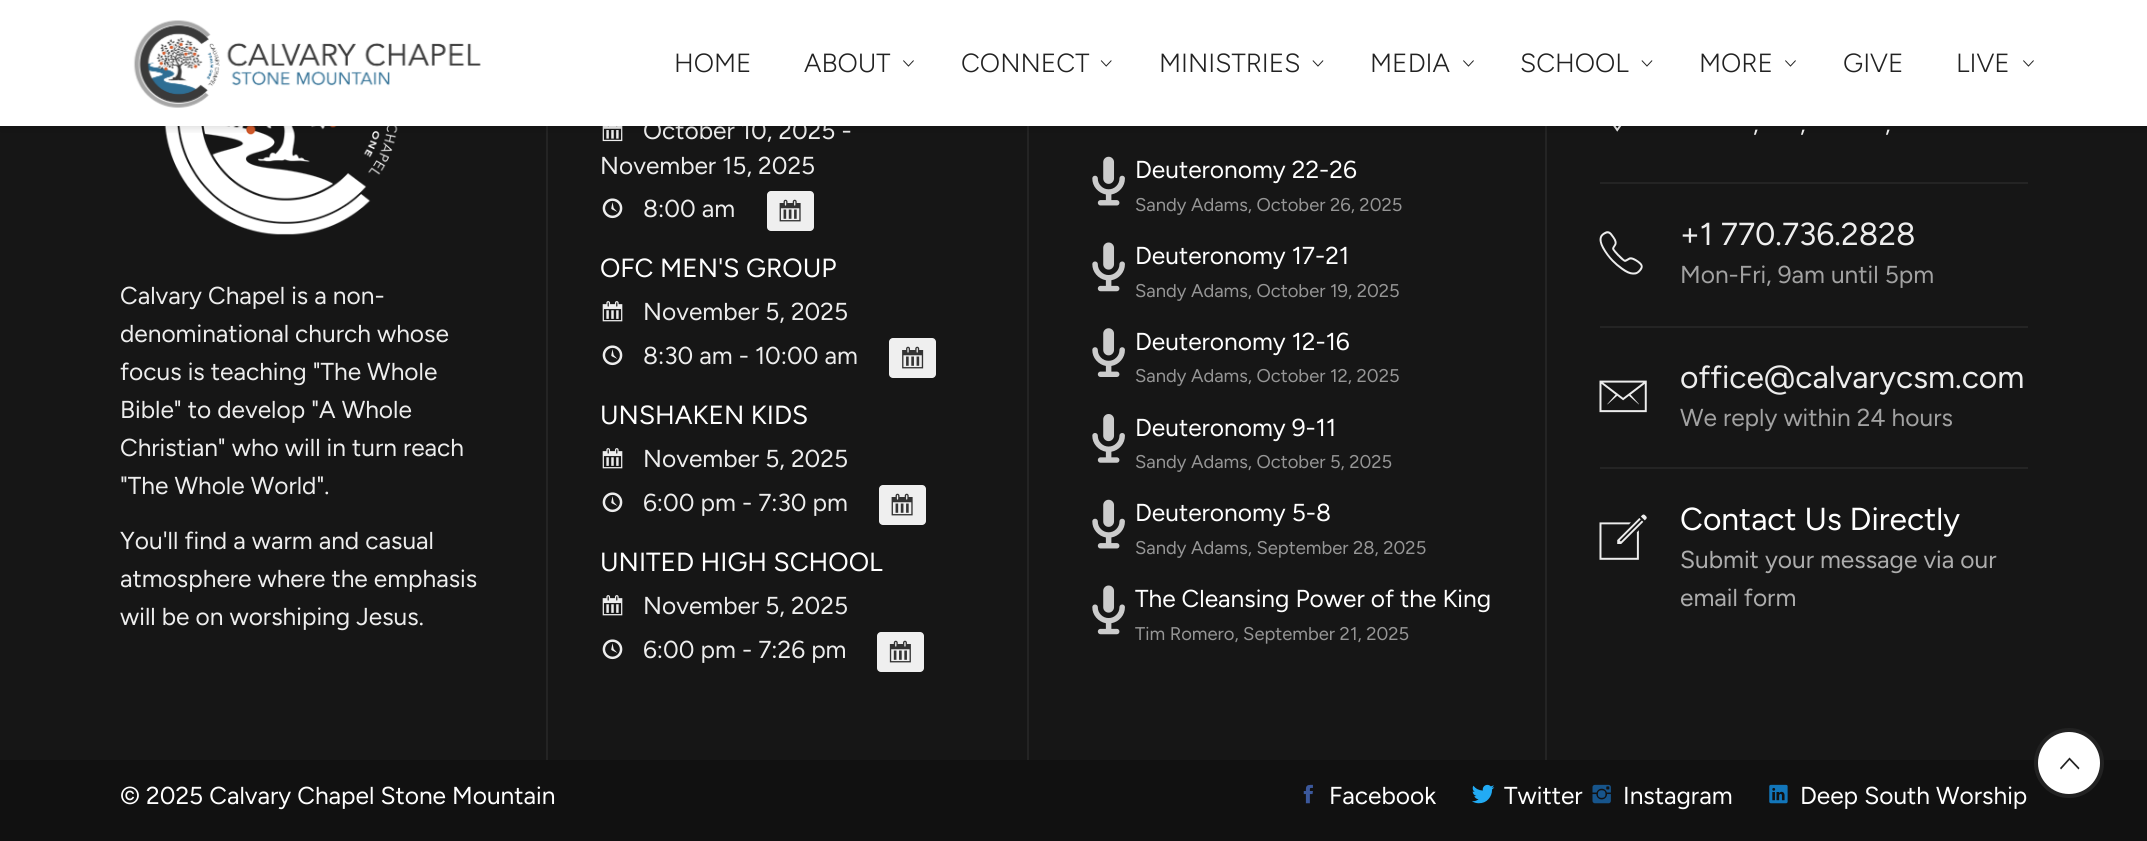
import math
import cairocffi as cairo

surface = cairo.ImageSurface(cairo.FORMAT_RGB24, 2147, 841)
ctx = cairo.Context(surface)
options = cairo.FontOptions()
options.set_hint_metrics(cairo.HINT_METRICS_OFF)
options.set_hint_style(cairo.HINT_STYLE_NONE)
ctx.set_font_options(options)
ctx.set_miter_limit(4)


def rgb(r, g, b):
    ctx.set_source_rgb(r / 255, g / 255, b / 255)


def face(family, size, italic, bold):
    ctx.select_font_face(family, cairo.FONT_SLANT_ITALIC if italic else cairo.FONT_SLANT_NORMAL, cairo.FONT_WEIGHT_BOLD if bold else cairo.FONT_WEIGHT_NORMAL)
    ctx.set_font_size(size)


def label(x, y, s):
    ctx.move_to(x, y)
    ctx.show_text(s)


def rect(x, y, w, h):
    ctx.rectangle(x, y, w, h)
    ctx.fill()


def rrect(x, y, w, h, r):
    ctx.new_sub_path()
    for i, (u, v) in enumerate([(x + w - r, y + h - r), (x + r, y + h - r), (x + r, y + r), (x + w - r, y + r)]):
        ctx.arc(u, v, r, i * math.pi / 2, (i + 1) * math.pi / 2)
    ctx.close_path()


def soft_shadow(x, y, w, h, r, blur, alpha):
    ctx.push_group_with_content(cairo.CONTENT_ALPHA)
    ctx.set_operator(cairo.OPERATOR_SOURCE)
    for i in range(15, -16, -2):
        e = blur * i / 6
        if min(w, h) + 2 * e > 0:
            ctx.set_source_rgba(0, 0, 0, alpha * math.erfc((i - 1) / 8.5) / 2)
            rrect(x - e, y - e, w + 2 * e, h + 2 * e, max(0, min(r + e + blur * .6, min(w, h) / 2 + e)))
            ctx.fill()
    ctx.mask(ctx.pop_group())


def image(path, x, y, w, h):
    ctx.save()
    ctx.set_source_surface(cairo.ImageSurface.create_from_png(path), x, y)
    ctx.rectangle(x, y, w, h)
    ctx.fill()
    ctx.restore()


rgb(17, 17, 17)
ctx.paint()
rgb(22, 22, 22)
rect(0, 126, 2147, 634)
face('Figtree', 24.5, 0, 0)
rgb(237, 237, 237)
label(643, 139, 'October 10, 2025 -')
rgb(255, 255, 255)
rect(0, 0, 2147, 126)
rgb(36, 36, 36)
rect(546, 126, 2, 634)
image('image4.png', 164, 126, 234, 109)
rect(1027, 126, 2, 634)
image('image5.png', 602, 126, 21, 16)
rect(1545, 126, 2, 634)
image('image15.png', 1613, 126, 9, 6)
ctx.save()
ctx.rectangle(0, 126, 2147, 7)
ctx.clip()
rgb(0, 0, 0)
soft_shadow(0, 2, 2147, 126, 0, 4.5, 0.15)
ctx.restore()
image('image0.png', 133, 20, 348, 88)
face('Figtree Light', 26.25, 0, 0)
rgb(34, 34, 34)
label(674, 72, 'HOME')
label(804, 72, 'ABOUT')
image('image1.png', 903, 60, 11, 7)
label(961, 72, 'CONNECT')
image('image2.png', 1100, 60, 12, 7)
label(1159, 72, 'MINISTRIES')
image('image3.png', 1312, 60, 12, 7)
label(1370, 72, 'MEDIA')
image('image1.png', 1463, 60, 11, 7)
label(1520, 72, 'SCHOOL')
image('image3.png', 1641, 60, 12, 7)
label(1699, 72, 'MORE')
image('image1.png', 1785, 60, 11, 7)
label(1843, 72, 'GIVE')
label(1956, 72, 'LIVE')
image('image1.png', 2023, 60, 11, 7)
face('Figtree', 24.5, 0, 0)
rgb(237, 237, 237)
label(120, 304, 'Calvary Chapel is a non-')
label(120, 342, 'denominational church whose')
label(120, 380, 'focus is teaching "The Whole')
label(120, 418, 'Bible" to develop "A Whole')
label(120, 456, 'Christian" who will in turn reach')
label(120, 494, '"The Whole World".')
label(120, 549, 'You\'ll find a warm and casual')
label(120, 587, 'atmosphere where the emphasis')
label(120, 625, 'will be on worshiping Jesus.')
label(600, 174, 'November 15, 2025')
image('image6.png', 602, 198, 21, 21)
label(643, 217, '8:00 am')
rgb(239, 239, 239)
rrect(767, 191, 47, 40, 4)
ctx.fill()
image('image7.png', 779, 199, 22, 23)
face('Figtree', 26.25, 0, 0)
rgb(255, 255, 255)
label(600, 277, 'OFC MEN\'S GROUP')
image('image8.png', 602, 301, 21, 21)
face('Figtree', 24.5, 0, 0)
rgb(237, 237, 237)
label(643, 320, 'November 5, 2025')
image('image6.png', 602, 345, 21, 21)
label(643, 364, '8:30 am - 10:00 am')
rgb(239, 239, 239)
rrect(889, 338, 47, 40, 4)
ctx.fill()
image('image9.png', 902, 346, 22, 23)
face('Figtree', 26.25, 0, 0)
rgb(255, 255, 255)
label(600, 424, 'UNSHAKEN KIDS')
image('image8.png', 602, 448, 21, 21)
face('Figtree', 24.5, 0, 0)
rgb(237, 237, 237)
label(643, 467, 'November 5, 2025')
image('image6.png', 602, 492, 21, 21)
label(643, 511, '6:00 pm - 7:30 pm')
rgb(239, 239, 239)
rrect(879, 485, 47, 40, 4)
ctx.fill()
image('image7.png', 891, 493, 22, 23)
face('Figtree', 26.25, 0, 0)
rgb(255, 255, 255)
label(600, 571, 'UNITED HIGH SCHOOL')
image('image8.png', 602, 595, 21, 21)
face('Figtree', 24.5, 0, 0)
rgb(237, 237, 237)
label(643, 614, 'November 5, 2025')
image('image6.png', 602, 639, 21, 21)
label(643, 658, '6:00 pm - 7:26 pm')
rgb(239, 239, 239)
rrect(877, 632, 47, 40, 4)
ctx.fill()
image('image10.png', 889, 640, 22, 23)
image('image11.png', 1092, 156, 33, 50)
rgb(255, 255, 255)
label(1135, 178, 'Deuteronomy 22-26')
face('Figtree', 18.4, 0, 0)
rgb(150, 150, 150)
label(1135, 211, 'Sandy Adams, October 26, 2025')
image('image12.png', 1092, 242, 33, 50)
face('Figtree', 24.5, 0, 0)
rgb(255, 255, 255)
label(1135, 264, 'Deuteronomy 17-21')
face('Figtree', 18.4, 0, 0)
rgb(150, 150, 150)
label(1135, 297, 'Sandy Adams, October 19, 2025')
image('image13.png', 1092, 328, 33, 49)
face('Figtree', 24.5, 0, 0)
rgb(255, 255, 255)
label(1135, 350, 'Deuteronomy 12-16')
face('Figtree', 18.4, 0, 0)
rgb(150, 150, 150)
label(1135, 382, 'Sandy Adams, October 12, 2025')
image('image14.png', 1092, 414, 33, 49)
face('Figtree', 24.5, 0, 0)
rgb(255, 255, 255)
label(1135, 436, 'Deuteronomy 9-11')
face('Figtree', 18.4, 0, 0)
rgb(150, 150, 150)
label(1135, 468, 'Sandy Adams, October 5, 2025')
image('image11.png', 1092, 499, 33, 50)
face('Figtree', 24.5, 0, 0)
rgb(255, 255, 255)
label(1135, 521, 'Deuteronomy 5-8')
face('Figtree', 18.4, 0, 0)
rgb(150, 150, 150)
label(1135, 554, 'Sandy Adams, September 28, 2025')
image('image12.png', 1092, 585, 33, 50)
face('Figtree', 24.5, 0, 0)
rgb(255, 255, 255)
label(1135, 607, 'The Cleansing Power of the King')
face('Figtree', 18.4, 0, 0)
rgb(150, 150, 150)
label(1135, 640, 'Tim Romero, September 21, 2025')
face('Figtree', 24.5, 0, 0)
rgb(237, 237, 237)
label(1753, 132, ',')
label(1800, 132, ',')
label(1885, 132, ',')
rgb(36, 36, 36)
rect(1600, 182, 428, 2)
image('image16.png', 1599, 231, 44, 44)
face('Figtree', 31.8, 0, 0)
rgb(237, 237, 237)
label(1680, 245, '+1 770.736.2828')
face('Figtree', 24.5, 0, 0)
rgb(162, 162, 162)
label(1680, 283, 'Mon-Fri, 9am until 5pm')
rgb(36, 36, 36)
rect(1600, 326, 428, 2)
image('image17.png', 1599, 380, 48, 33)
face('Figtree', 31.8, 0, 0)
rgb(237, 237, 237)
label(1680, 388, 'office@calvarycsm.com')
face('Figtree', 24.5, 0, 0)
rgb(162, 162, 162)
label(1680, 426, 'We reply within 24 hours')
rgb(36, 36, 36)
rect(1600, 467, 428, 2)
image('image18.png', 1599, 514, 48, 46)
face('Figtree', 31.8, 0, 0)
rgb(255, 255, 255)
label(1680, 530, 'Contact Us Directly')
face('Figtree', 24.5, 0, 0)
rgb(173, 173, 173)
label(1680, 568, 'Submit your message via our')
label(1680, 606, 'email form')
rgb(255, 255, 255)
label(120, 804, '© 2025 Calvary Chapel Stone Mountain')
image('image19.png', 1303, 784, 10, 20)
label(1329, 804, 'Facebook')
image('image20.png', 1472, 784, 23, 20)
label(1504, 804, 'Twitter')
image('image21.png', 1592, 784, 19, 20)
label(1623, 804, 'Instagram')
image('image22.png', 1769, 784, 19, 20)
label(1800, 804, 'Deep South Worship')
ctx.new_path()
ctx.arc(2069, 763, 33, 0, 2 * math.pi)
ctx.fill_preserve()
rgb(34, 34, 34)
ctx.set_line_width(4)
ctx.stroke()
ctx.new_path()
ctx.move_to(2078.5, 769.5)
ctx.line_to(2069.5, 760)
ctx.line_to(2061, 769.5)
ctx.line_to(2060, 768)
ctx.line_to(2069.5, 757.5)
ctx.line_to(2079.5, 768)
ctx.close_path()
ctx.fill()
surface.write_to_png('render.png')
